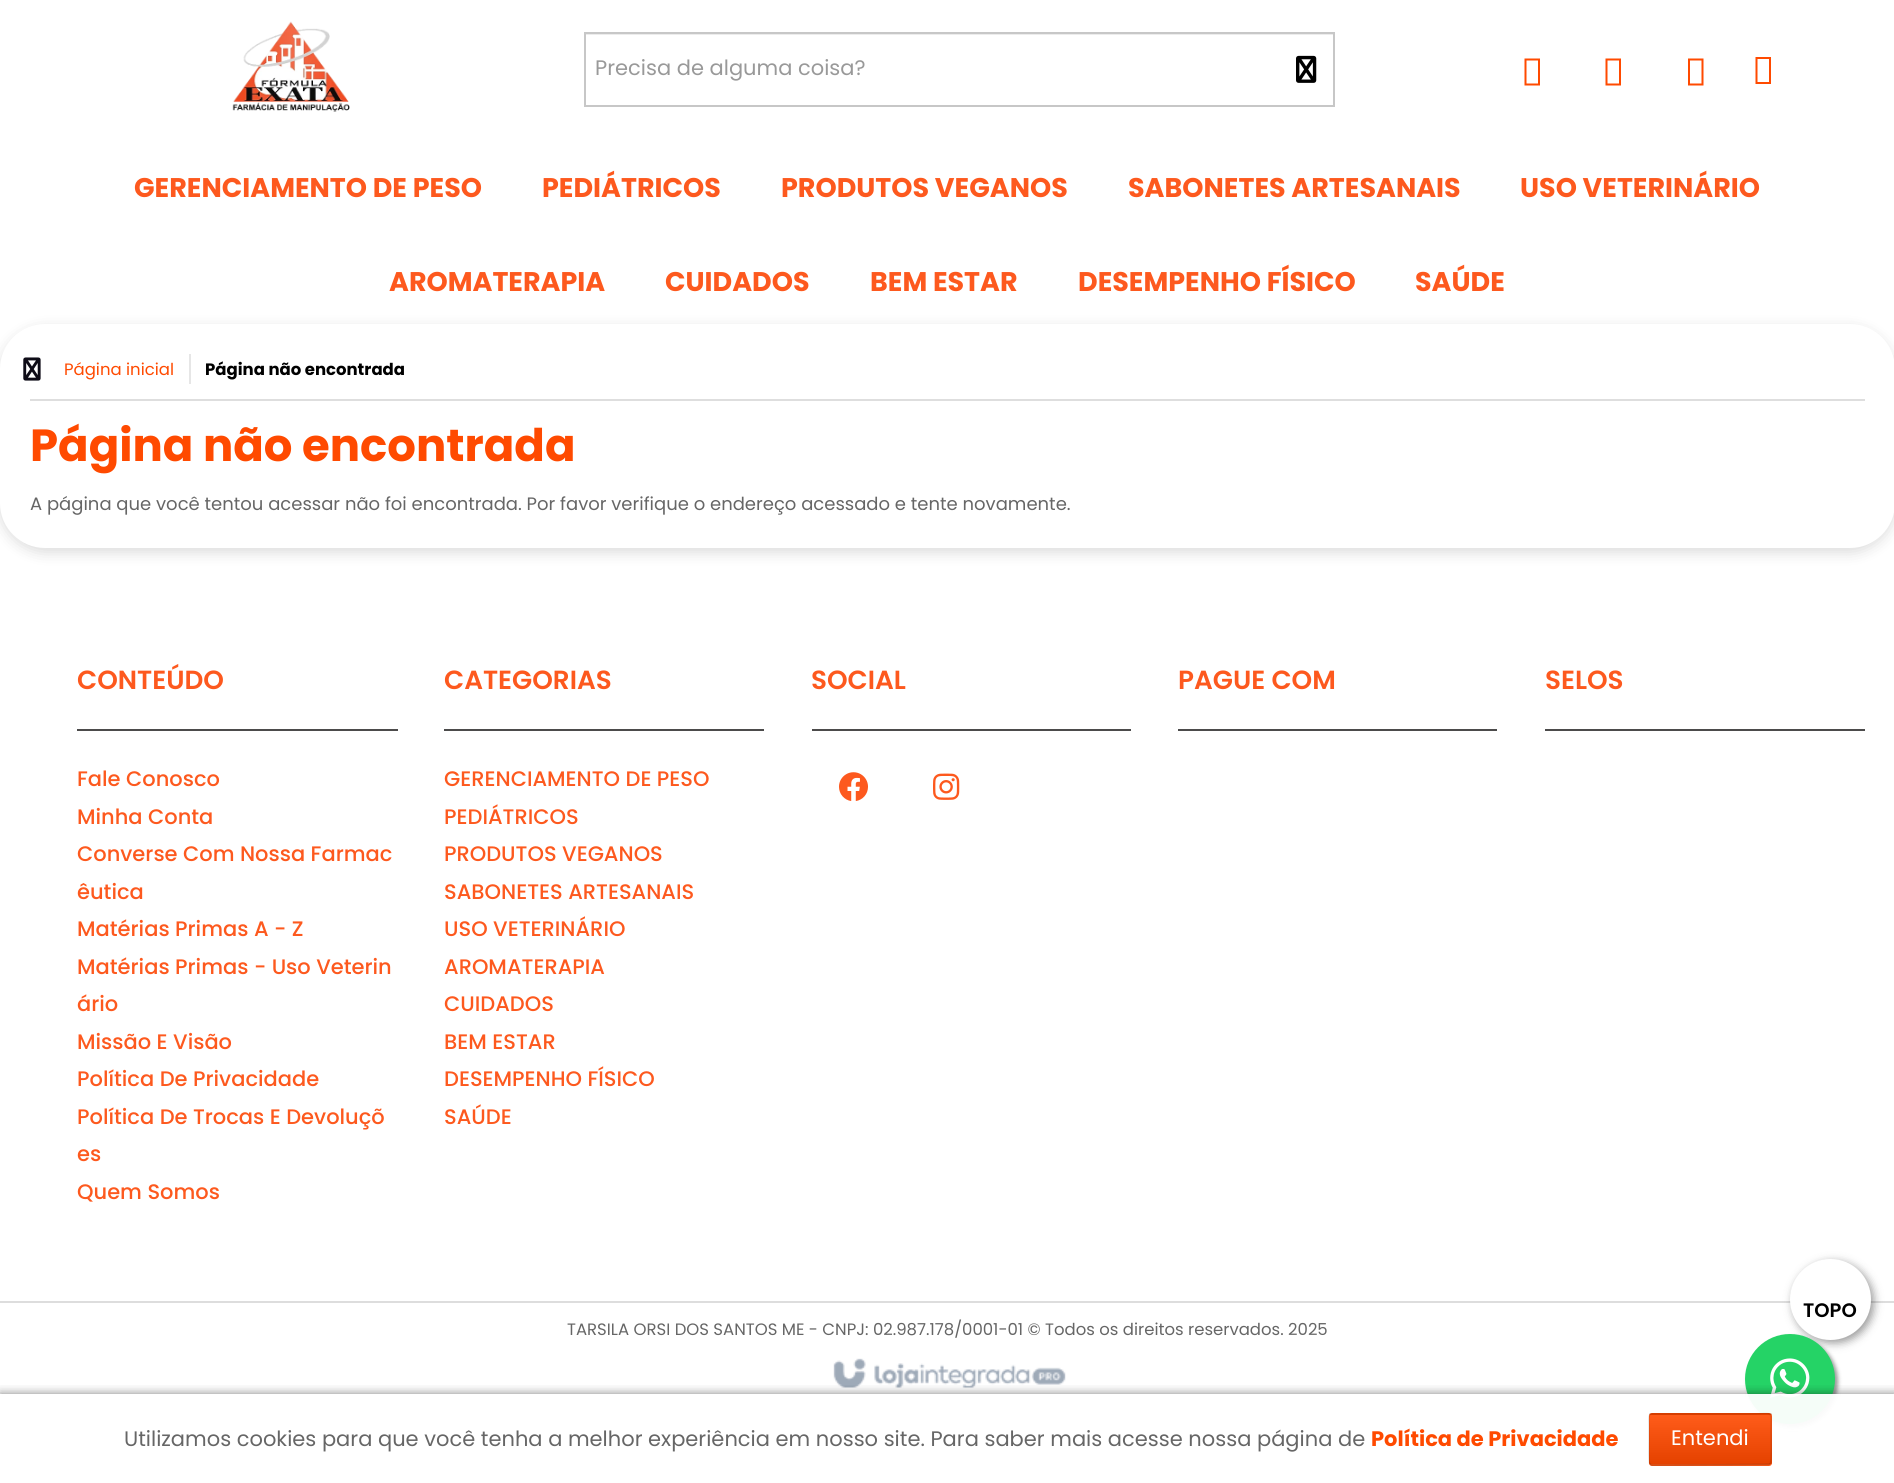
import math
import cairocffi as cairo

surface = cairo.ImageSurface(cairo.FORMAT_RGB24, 1894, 1483)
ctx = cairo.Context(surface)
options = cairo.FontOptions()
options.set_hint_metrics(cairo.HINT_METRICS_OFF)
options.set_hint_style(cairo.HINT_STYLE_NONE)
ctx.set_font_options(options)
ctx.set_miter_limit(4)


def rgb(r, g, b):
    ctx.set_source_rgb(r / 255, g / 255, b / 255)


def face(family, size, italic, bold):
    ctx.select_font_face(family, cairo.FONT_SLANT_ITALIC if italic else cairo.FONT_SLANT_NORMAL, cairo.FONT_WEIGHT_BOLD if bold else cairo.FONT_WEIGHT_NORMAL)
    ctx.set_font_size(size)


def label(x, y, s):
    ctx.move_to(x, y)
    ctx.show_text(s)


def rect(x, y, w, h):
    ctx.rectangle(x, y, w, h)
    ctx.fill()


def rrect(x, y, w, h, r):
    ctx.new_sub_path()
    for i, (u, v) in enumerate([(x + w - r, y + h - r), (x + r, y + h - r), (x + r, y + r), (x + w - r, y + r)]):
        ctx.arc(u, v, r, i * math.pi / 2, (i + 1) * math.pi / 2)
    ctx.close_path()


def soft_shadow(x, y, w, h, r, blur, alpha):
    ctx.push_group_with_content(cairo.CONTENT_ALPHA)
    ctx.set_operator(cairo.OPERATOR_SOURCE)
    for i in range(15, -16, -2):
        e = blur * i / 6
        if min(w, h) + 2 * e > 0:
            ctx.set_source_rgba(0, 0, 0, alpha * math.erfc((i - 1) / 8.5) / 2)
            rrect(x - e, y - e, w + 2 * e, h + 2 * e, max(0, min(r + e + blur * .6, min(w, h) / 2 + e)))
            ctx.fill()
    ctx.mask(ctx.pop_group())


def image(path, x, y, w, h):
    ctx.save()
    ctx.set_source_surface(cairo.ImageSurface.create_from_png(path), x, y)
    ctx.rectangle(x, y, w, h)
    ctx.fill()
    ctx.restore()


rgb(255, 255, 255)
ctx.paint()
image('image0.png', 232, 21, 118, 91)
rgb(236, 236, 236)
rect(585, 34, 749, 1)
ctx.rectangle(585, 33, 749, 73)
rgb(199, 199, 199)
ctx.stroke()
face('Poppins', 21, 0, 0)
rgb(153, 153, 153)
label(595, 75, 'Precisa de alguma coisa?')
image('image1.png', 1296, 55, 21, 28)
rgb(255, 74, 0)
ctx.new_path()
ctx.move_to(1524.5, 85.5)
ctx.line_to(1524.5, 58.5)
ctx.line_to(1540, 58.5)
ctx.line_to(1540, 85.5)
ctx.close_path()
ctx.move_to(1526.5, 83.5)
ctx.line_to(1538, 83.5)
ctx.line_to(1538, 60.5)
ctx.line_to(1526.5, 60.5)
ctx.close_path()
ctx.fill()
ctx.new_path()
ctx.move_to(1605.5, 85.5)
ctx.line_to(1605.5, 58.5)
ctx.line_to(1621, 58.5)
ctx.line_to(1621, 85.5)
ctx.close_path()
ctx.move_to(1607.5, 83.5)
ctx.line_to(1619, 83.5)
ctx.line_to(1619, 60.5)
ctx.line_to(1607.5, 60.5)
ctx.close_path()
ctx.fill()
ctx.new_path()
ctx.move_to(1688, 85.5)
ctx.line_to(1688, 58.5)
ctx.line_to(1703.5, 58.5)
ctx.line_to(1703.5, 85.5)
ctx.close_path()
ctx.move_to(1690, 83.5)
ctx.line_to(1701.5, 83.5)
ctx.line_to(1701.5, 60.5)
ctx.line_to(1690, 60.5)
ctx.close_path()
ctx.fill()
ctx.new_path()
ctx.move_to(1755.5, 84)
ctx.line_to(1755.5, 57)
ctx.line_to(1771, 57)
ctx.line_to(1771, 84)
ctx.close_path()
ctx.move_to(1757.5, 82)
ctx.line_to(1769, 82)
ctx.line_to(1769, 59)
ctx.line_to(1757.5, 59)
ctx.close_path()
ctx.fill()
face('Poppins', 27, 0, 1)
rgb(253, 89, 30)
label(134, 197, 'GERENCIAMENTO DE PESO')
label(542, 197, 'PEDIÁTRICOS')
label(781, 197, 'PRODUTOS VEGANOS')
label(1128, 197, 'SABONETES ARTESANAIS')
label(1520, 197, 'USO VETERINÁRIO')
label(389, 291, 'AROMATERAPIA')
label(665, 291, 'CUIDADOS')
label(870, 291, 'BEM ESTAR')
label(1078, 291, 'DESEMPENHO FÍSICO')
label(1415, 291, 'SAÚDE')
rgb(0, 0, 0)
soft_shadow(0, 329, 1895, 223, 45, 7.5, 0.15)
rgb(255, 255, 255)
rrect(0, 324, 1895, 224, 45)
ctx.fill()
rgb(222, 222, 222)
rect(30, 399, 1835, 2)
image('image2.png', 23, 357, 18, 24)
face('Poppins', 16.5, 0, 0)
rgb(255, 74, 0)
label(64, 375, 'Página inicial')
rgb(230, 230, 230)
rect(189, 354, 2, 30)
face('Poppins', 16.5, 0, 1)
rgb(0, 0, 0)
label(205, 375, 'Página não encontrada')
face('Poppins', 45, 0, 1)
rgb(255, 74, 0)
label(30, 461, 'Página não encontrada')
face('Poppins', 18, 0, 0)
rgb(102, 102, 102)
label(30, 510, 'A página que você tentou acessar não foi encontrada. Por favor verifique o endereço acessado e tente novamente.')
rgb(76, 75, 75)
rect(77, 729, 321, 2)
face('Poppins SemiBold', 26.25, 0, 0)
rgb(253, 89, 30)
label(77, 689, 'CONTEÚDO')
face('Poppins Medium', 21, 0, 0)
label(77, 786, 'Fale Conosco')
label(77, 824, 'Minha Conta')
label(77, 861, 'Converse Com Nossa Farmac')
label(77, 899, 'êutica')
label(77, 936, 'Matérias Primas A - Z')
label(77, 974, 'Matérias Primas - Uso Veterin')
label(77, 1011, 'ário')
label(77, 1049, 'Missão E Visão')
label(77, 1086, 'Política De Privacidade')
label(77, 1124, 'Política De Trocas E Devoluçõ')
label(77, 1161, 'es')
label(77, 1199, 'Quem Somos')
rgb(76, 75, 75)
rect(444, 729, 320, 2)
face('Poppins SemiBold', 26.25, 0, 0)
rgb(253, 89, 30)
label(444, 689, 'CATEGORIAS')
face('Poppins Medium', 21, 0, 0)
label(444, 786, 'GERENCIAMENTO DE PESO')
label(444, 824, 'PEDIÁTRICOS')
label(444, 861, 'PRODUTOS VEGANOS')
label(444, 899, 'SABONETES ARTESANAIS')
label(444, 936, 'USO VETERINÁRIO')
label(444, 974, 'AROMATERAPIA')
label(444, 1011, 'CUIDADOS')
label(444, 1049, 'BEM ESTAR')
label(444, 1086, 'DESEMPENHO FÍSICO')
label(444, 1124, 'SAÚDE')
rgb(76, 75, 75)
rect(812, 729, 319, 2)
face('Poppins SemiBold', 26.25, 0, 0)
rgb(253, 89, 30)
label(811, 689, 'SOCIAL')
image('image3.png', 839, 772, 29, 29)
image('image4.png', 933, 773, 27, 27)
rgb(76, 75, 75)
rect(1178, 729, 319, 2)
rgb(253, 89, 30)
label(1178, 689, 'PAGUE COM')
rgb(76, 75, 75)
rect(1545, 729, 320, 2)
rgb(253, 89, 30)
label(1545, 689, 'SELOS')
rgb(221, 221, 221)
rect(0, 1301, 1894, 2)
face('Poppins', 16.5, 0, 0)
rgb(102, 102, 102)
label(567, 1335, 'TARSILA ORSI DOS SANTOS ME - CNPJ: 02.987.178/0001-01 © Todos os direitos reservados. 2025')
image('image5.png', 833, 1358, 233, 30)
rgb(0, 0, 0)
soft_shadow(1793, 1262, 81, 81, 40.5, 4.5, 0.4)
rgb(255, 255, 255)
ctx.arc(1830.5, 1299.5, 40.5, 0, 2 * math.pi)
ctx.fill()
face('Poppins SemiBold', 19.5, 0, 0)
rgb(0, 0, 0)
label(1803, 1317, 'TOPO')
rgb(153, 153, 153)
soft_shadow(1748, 1337, 90, 90, 45, 2, 1)
rgb(37, 211, 102)
ctx.arc(1790, 1379, 45, 0, 2 * math.pi)
ctx.fill()
image('image6.png', 1770, 1358, 40, 40)
ctx.save()
ctx.rectangle(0, 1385, 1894, 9)
ctx.clip()
rgb(0, 0, 0)
soft_shadow(0, 1394, 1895, 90, 0, 5, 0.5)
ctx.restore()
ctx.set_source_rgba(1, 1, 1, 0.95)
rect(1746, 1394, 94, 37)
face('Poppins', 21, 0, 0)
rgb(102, 102, 102)
label(124, 1446, 'Utilizamos cookies para que você tenha a melhor experiência em nosso site. Para saber mais acesse nossa página de')
face('Poppins', 21, 0, 1)
rgb(255, 74, 0)
label(1371, 1446, 'Política de Privacidade')
rrect(1649, 1413, 123, 53, 3)
ctx.fill()
gradient = cairo.LinearGradient(1710, 1365, 1710, 1415)
gradient.add_color_stop_rgba(0, 1, 1, 1, 0.1)
gradient.add_color_stop_rgba(1, 0, 0, 0, 0.1)
ctx.set_source(gradient)
rect(1649, 1413, 123, 2)
gradient = cairo.LinearGradient(1710, 1415, 1710, 1464)
gradient.add_color_stop_rgba(0, 1, 1, 1, 0.1)
gradient.add_color_stop_rgba(1, 0, 0, 0, 0.1)
ctx.set_source(gradient)
rect(1649, 1415, 123, 49)
gradient = cairo.LinearGradient(1710, 1464, 1710, 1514)
gradient.add_color_stop_rgba(0, 1, 1, 1, 0.1)
gradient.add_color_stop_rgba(1, 0, 0, 0, 0.1)
ctx.set_source(gradient)
rect(1649, 1464, 123, 2)
ctx.new_path()
ctx.move_to(1770, 1464)
ctx.line_to(1768.5, 1464.5)
ctx.line_to(1671, 1465)
ctx.line_to(1651.5, 1465)
ctx.line_to(1650, 1464)
ctx.set_source_rgba(0, 0, 0, 0.2)
ctx.set_line_width(1.5)
ctx.stroke()
ctx.new_path()
ctx.move_to(1650, 1464)
ctx.curve_to(1648, 1462.5, 1649, 1442.5, 1649, 1439)
ctx.line_to(1649, 1424)
ctx.curve_to(1649, 1423.5, 1647.5, 1414, 1651.5, 1414)
ctx.line_to(1749, 1414)
ctx.curve_to(1774.5, 1414, 1771, 1408.5, 1771, 1431.5)
ctx.curve_to(1771, 1435.5, 1772, 1462.5, 1770, 1464)
ctx.set_source_rgba(0, 0, 0, 0.1)
ctx.stroke()
face('Poppins', 21, 0, 0)
rgb(255, 255, 255)
label(1671, 1445, 'Entendi')
surface.write_to_png('render.png')
